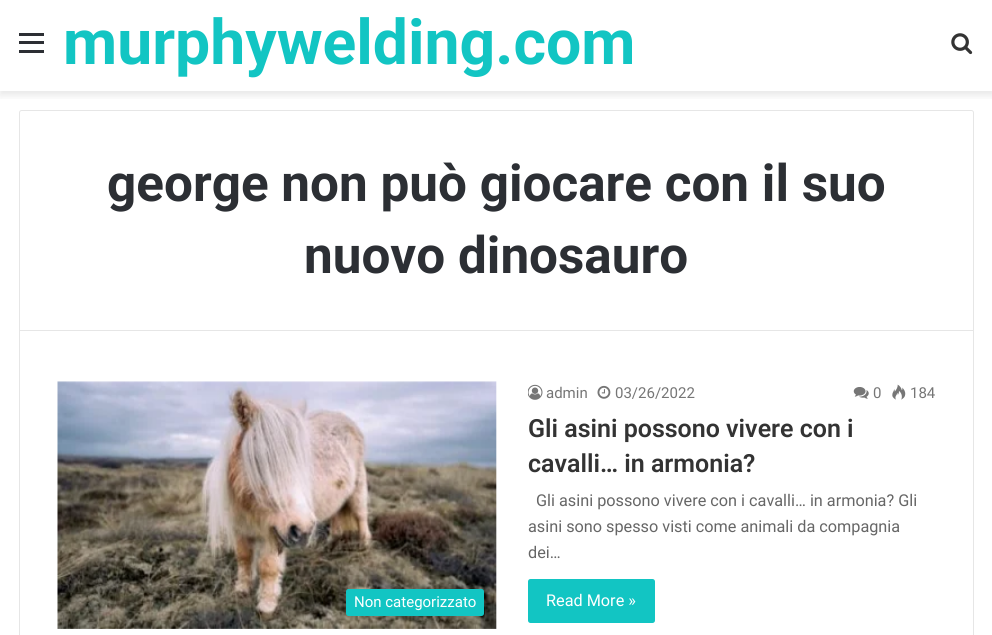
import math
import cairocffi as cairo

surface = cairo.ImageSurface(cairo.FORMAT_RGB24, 992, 635)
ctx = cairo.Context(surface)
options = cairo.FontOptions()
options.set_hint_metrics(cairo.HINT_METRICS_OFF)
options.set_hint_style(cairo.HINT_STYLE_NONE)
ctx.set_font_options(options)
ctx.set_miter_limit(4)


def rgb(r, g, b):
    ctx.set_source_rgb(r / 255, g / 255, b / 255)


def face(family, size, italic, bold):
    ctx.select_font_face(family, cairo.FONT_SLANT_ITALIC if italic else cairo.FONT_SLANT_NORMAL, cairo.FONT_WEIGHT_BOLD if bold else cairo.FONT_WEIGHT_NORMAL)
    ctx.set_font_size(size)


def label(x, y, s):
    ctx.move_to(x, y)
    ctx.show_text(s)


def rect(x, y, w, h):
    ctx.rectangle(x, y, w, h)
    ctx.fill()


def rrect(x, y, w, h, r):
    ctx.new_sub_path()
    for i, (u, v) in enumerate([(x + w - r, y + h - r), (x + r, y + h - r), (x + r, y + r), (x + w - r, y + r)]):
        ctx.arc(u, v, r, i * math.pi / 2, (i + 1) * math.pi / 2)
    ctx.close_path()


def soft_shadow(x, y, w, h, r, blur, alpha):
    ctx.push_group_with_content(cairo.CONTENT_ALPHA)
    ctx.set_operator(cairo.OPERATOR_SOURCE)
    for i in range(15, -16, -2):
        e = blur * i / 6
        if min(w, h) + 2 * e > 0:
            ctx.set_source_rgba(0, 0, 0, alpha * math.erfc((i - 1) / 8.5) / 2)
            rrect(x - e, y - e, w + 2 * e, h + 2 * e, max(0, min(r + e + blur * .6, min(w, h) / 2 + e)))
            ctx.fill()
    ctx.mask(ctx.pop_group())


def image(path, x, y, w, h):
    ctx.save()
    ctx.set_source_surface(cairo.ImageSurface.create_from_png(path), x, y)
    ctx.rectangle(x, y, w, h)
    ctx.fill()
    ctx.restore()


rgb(255, 255, 255)
ctx.paint()
ctx.save()
ctx.rectangle(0, 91, 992, 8)
ctx.clip()
rgb(0, 0, 0)
soft_shadow(0, -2, 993, 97, 0, 4.5, 0.1)
ctx.restore()
rgb(44, 47, 52)
rect(19, 41, 25, 3)
rect(19, 33, 25, 3)
rect(19, 50, 25, 3)
face('Roboto', 62.5, 0, 1)
rgb(18, 197, 195)
label(63, 64, 'murphywelding.com')
image('image0.png', 951, 33, 22, 22)
ctx.new_path()
ctx.move_to(21.5, 110.5)
ctx.line_to(971.5, 110.5)
ctx.curve_to(972.5, 110.5, 973.5, 111.5, 973.5, 112.5)
ctx.line_to(973.5, 330.5)
ctx.line_to(19.5, 330.5)
ctx.line_to(19.5, 112.5)
ctx.curve_to(19.5, 111.5, 20.5, 110.5, 21.5, 110.5)
ctx.close_path()
rgb(230, 230, 230)
ctx.set_line_width(1)
ctx.stroke()
face('Roboto', 51.25, 0, 1)
rgb(44, 47, 52)
label(107, 201, 'george non può giocare con il suo')
label(304, 273, 'nuovo dinosauro')
rgb(230, 230, 230)
rect(973, 331, 1, 304)
rect(19, 331, 1, 304)
image('image1.png', 57, 381, 440, 248)
rgb(18, 197, 195)
rrect(346, 589, 138, 27, 2.5)
ctx.fill()
face('Roboto', 15, 0, 0)
rgb(255, 255, 255)
label(354, 607, 'Non categorizzato')
image('image2.png', 528, 384, 15, 16)
rgb(118, 118, 118)
label(546, 398, 'admin')
image('image3.png', 597, 385, 14, 14)
label(615, 398, '03/26/2022')
image('image4.png', 853, 387, 16, 12)
label(873, 398, '0')
image('image5.png', 892, 384, 14, 16)
label(910, 398, '184')
face('Roboto SemiBold', 25, 0, 0)
rgb(51, 51, 51)
label(528, 437, 'Gli asini possono vivere con i')
label(528, 472, 'cavalli… in armonia?')
face('Roboto', 16.25, 0, 0)
rgb(102, 102, 102)
label(536, 506, 'Gli asini possono vivere con i cavalli… in armonia? Gli')
label(528, 532, 'asini sono spesso visti come animali da compagnia')
label(528, 558, 'dei…')
rgb(18, 197, 195)
rrect(528, 579, 127, 44, 2.5)
ctx.fill()
rgb(255, 255, 255)
label(546, 606, 'Read More »')
surface.write_to_png('render.png')
